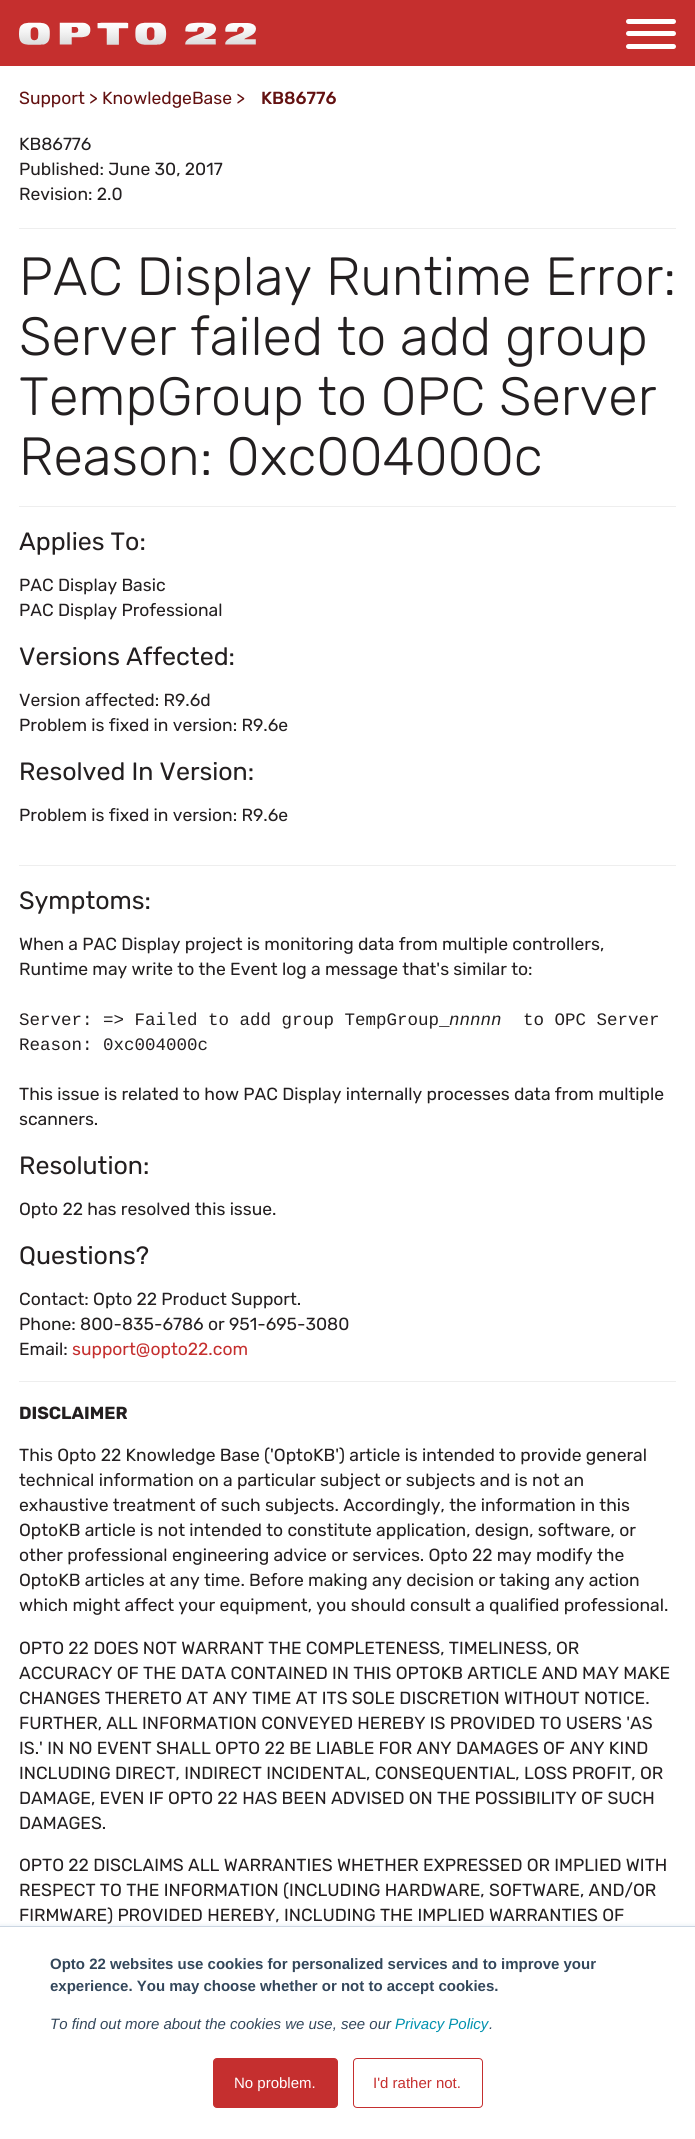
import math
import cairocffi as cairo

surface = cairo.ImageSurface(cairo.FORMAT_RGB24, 695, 2139)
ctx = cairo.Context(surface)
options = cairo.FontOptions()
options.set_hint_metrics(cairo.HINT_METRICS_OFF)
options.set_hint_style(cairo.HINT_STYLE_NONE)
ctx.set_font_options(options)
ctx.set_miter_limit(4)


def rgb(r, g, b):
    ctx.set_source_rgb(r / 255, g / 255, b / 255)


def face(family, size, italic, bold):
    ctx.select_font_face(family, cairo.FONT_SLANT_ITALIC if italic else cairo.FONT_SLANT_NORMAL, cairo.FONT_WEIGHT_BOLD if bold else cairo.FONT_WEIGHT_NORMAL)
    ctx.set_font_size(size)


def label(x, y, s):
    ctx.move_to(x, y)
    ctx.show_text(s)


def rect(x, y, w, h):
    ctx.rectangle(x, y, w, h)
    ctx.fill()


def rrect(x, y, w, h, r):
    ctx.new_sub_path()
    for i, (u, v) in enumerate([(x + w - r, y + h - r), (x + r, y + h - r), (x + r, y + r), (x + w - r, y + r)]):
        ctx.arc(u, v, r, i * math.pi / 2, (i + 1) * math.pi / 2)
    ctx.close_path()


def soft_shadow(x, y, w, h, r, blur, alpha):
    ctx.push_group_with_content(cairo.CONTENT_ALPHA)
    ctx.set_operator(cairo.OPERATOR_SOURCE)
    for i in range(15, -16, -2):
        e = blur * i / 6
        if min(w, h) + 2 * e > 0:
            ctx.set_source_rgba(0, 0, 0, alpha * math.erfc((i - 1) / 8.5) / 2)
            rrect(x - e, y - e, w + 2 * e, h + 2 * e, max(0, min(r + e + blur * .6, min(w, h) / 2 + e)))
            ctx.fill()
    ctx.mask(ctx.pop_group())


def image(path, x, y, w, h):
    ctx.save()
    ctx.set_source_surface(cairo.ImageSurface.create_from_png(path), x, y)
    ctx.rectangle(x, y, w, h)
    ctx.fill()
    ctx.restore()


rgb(255, 255, 255)
ctx.paint()
rgb(197, 47, 46)
rect(0, 0, 695, 66)
image('image0.png', 19, 22, 237, 23)
rgb(255, 255, 255)
rrect(626, 31, 50, 5, 2.5)
ctx.fill()
rrect(626, 19, 50, 5, 2.5)
ctx.fill()
rrect(626, 44, 50, 5, 2.5)
ctx.fill()
face('Rubik', 17.5, 0, 0)
rgb(99, 17, 17)
label(19, 104, 'Support > KnowledgeBase >')
face('Rubik Medium', 17.5, 0, 0)
label(261, 104, 'KB86776')
face('Rubik', 17.5, 0, 0)
rgb(35, 31, 32)
label(19, 150, 'KB86776')
label(19, 175, 'Published: June 30, 2017')
label(19, 200, 'Revision: 2.0')
rgb(238, 238, 238)
rect(19, 228, 657, 1)
face('Rubik Light', 53.75, 0, 0)
rgb(35, 31, 32)
label(19, 295, 'PAC Display Runtime Error:')
label(19, 355, 'Server failed to add group')
label(19, 415, 'TempGroup to OPC Server')
label(19, 475, 'Reason: 0xc004000c')
rgb(238, 238, 238)
rect(19, 506, 657, 1)
face('Rubik', 25, 0, 0)
rgb(35, 31, 32)
label(19, 550, 'Applies To:')
face('Rubik', 17.5, 0, 0)
label(19, 591, 'PAC Display Basic')
label(19, 616, 'PAC Display Professional')
face('Rubik', 25, 0, 0)
label(19, 665, 'Versions Affected:')
face('Rubik', 17.5, 0, 0)
label(19, 706, 'Version affected: R9.6d')
label(19, 731, 'Problem is fixed in version: R9.6e')
face('Rubik', 25, 0, 0)
label(19, 780, 'Resolved In Version:')
face('Rubik', 17.5, 0, 0)
label(19, 821, 'Problem is fixed in version: R9.6e')
rgb(238, 238, 238)
rect(19, 865, 657, 1)
face('Rubik', 25, 0, 0)
rgb(35, 31, 32)
label(19, 909, 'Symptoms:')
face('Rubik', 17.5, 0, 0)
label(19, 950, 'When a PAC Display project is monitoring data from multiple controllers,')
label(19, 975, 'Runtime may write to the Event log a message that\'s similar to:')
face('Liberation Mono', 17.5, 0, 0)
label(19, 1025, 'Server: => Failed to add group TempGroup_')
face('Liberation Mono', 17.5, 1, 0)
label(449, 1025, 'nnnnn')
face('Liberation Mono', 17.5, 0, 0)
label(523, 1025, 'to OPC Server')
label(19, 1050, 'Reason: 0xc004000c')
face('Rubik', 17.5, 0, 0)
label(19, 1100, 'This issue is related to how PAC Display internally processes data from multiple')
label(19, 1125, 'scanners.')
face('Rubik', 25, 0, 0)
label(19, 1174, 'Resolution:')
face('Rubik', 17.5, 0, 0)
label(19, 1215, 'Opto 22 has resolved this issue.')
face('Rubik', 25, 0, 0)
label(19, 1264, 'Questions?')
face('Rubik', 17.5, 0, 0)
label(19, 1305, 'Contact: Opto 22 Product Support.')
label(19, 1330, 'Phone: 800-835-6786 or 951-695-3080')
label(19, 1355, 'Email:')
rgb(197, 47, 46)
label(72, 1355, 'support@opto22.com')
rgb(238, 238, 238)
rect(19, 1381, 657, 1)
face('Rubik', 17.5, 0, 1)
rgb(35, 31, 32)
label(19, 1419, 'DISCLAIMER')
face('Rubik', 17.5, 0, 0)
label(19, 1461, 'This Opto 22 Knowledge Base (\'OptoKB\') article is intended to provide general')
label(19, 1486, 'technical information on a particular subject or subjects and is not an')
label(19, 1511, 'exhaustive treatment of such subjects. Accordingly, the information in this')
label(19, 1536, 'OptoKB article is not intended to constitute application, design, software, or')
label(19, 1561, 'other professional engineering advice or services. Opto 22 may modify the')
label(19, 1586, 'OptoKB articles at any time. Before making any decision or taking any action')
label(19, 1611, 'which might affect your equipment, you should consult a qualified professional.')
label(19, 1654, 'OPTO 22 DOES NOT WARRANT THE COMPLETENESS, TIMELINESS, OR')
label(19, 1679, 'ACCURACY OF THE DATA CONTAINED IN THIS OPTOKB ARTICLE AND MAY MAKE')
label(19, 1704, 'CHANGES THERETO AT ANY TIME AT ITS SOLE DISCRETION WITHOUT NOTICE.')
label(19, 1729, 'FURTHER, ALL INFORMATION CONVEYED HEREBY IS PROVIDED TO USERS \'AS')
label(19, 1754, 'IS.\' IN NO EVENT SHALL OPTO 22 BE LIABLE FOR ANY DAMAGES OF ANY KIND')
label(19, 1779, 'INCLUDING DIRECT, INDIRECT INCIDENTAL, CONSEQUENTIAL, LOSS PROFIT, OR')
label(19, 1804, 'DAMAGE, EVEN IF OPTO 22 HAS BEEN ADVISED ON THE POSSIBILITY OF SUCH')
label(19, 1829, 'DAMAGES.')
label(19, 1871, 'OPTO 22 DISCLAIMS ALL WARRANTIES WHETHER EXPRESSED OR IMPLIED WITH')
label(19, 1896, 'RESPECT TO THE INFORMATION (INCLUDING HARDWARE, SOFTWARE, AND/OR')
label(19, 1921, 'FIRMWARE) PROVIDED HEREBY, INCLUDING THE IMPLIED WARRANTIES OF')
rgb(234, 240, 246)
soft_shadow(0, 1925, 695, 214, 0, 2, 1)
rgb(255, 255, 255)
rect(0, 1927, 695, 212)
rgb(203, 214, 226)
rect(0, 1926, 695, 1)
face('Liberation Sans', 15, 0, 1)
rgb(51, 71, 91)
label(50, 1969, 'Opto 22 websites use cookies for personalized services and to improve your')
label(50, 1991, 'experience. You may choose whether or not to accept cookies.')
face('Liberation Sans', 15, 1, 0)
label(50, 2029, 'To find out more about the cookies we use, see our')
rgb(0, 145, 174)
label(395, 2029, 'Privacy Policy')
rgb(51, 71, 91)
label(489, 2029, '.')
rgb(197, 47, 47)
rrect(213.5, 2058.5, 124, 49, 3.5)
ctx.fill_preserve()
ctx.set_line_width(1)
ctx.stroke()
face('Liberation Sans', 15, 0, 0)
rgb(255, 255, 255)
label(234, 2088, 'No problem.')
rrect(353.5, 2058.5, 129, 49, 3.5)
rgb(197, 47, 47)
ctx.stroke()
rgb(197, 47, 46)
label(373, 2088, 'I\'d rather not.')
surface.write_to_png('render.png')
